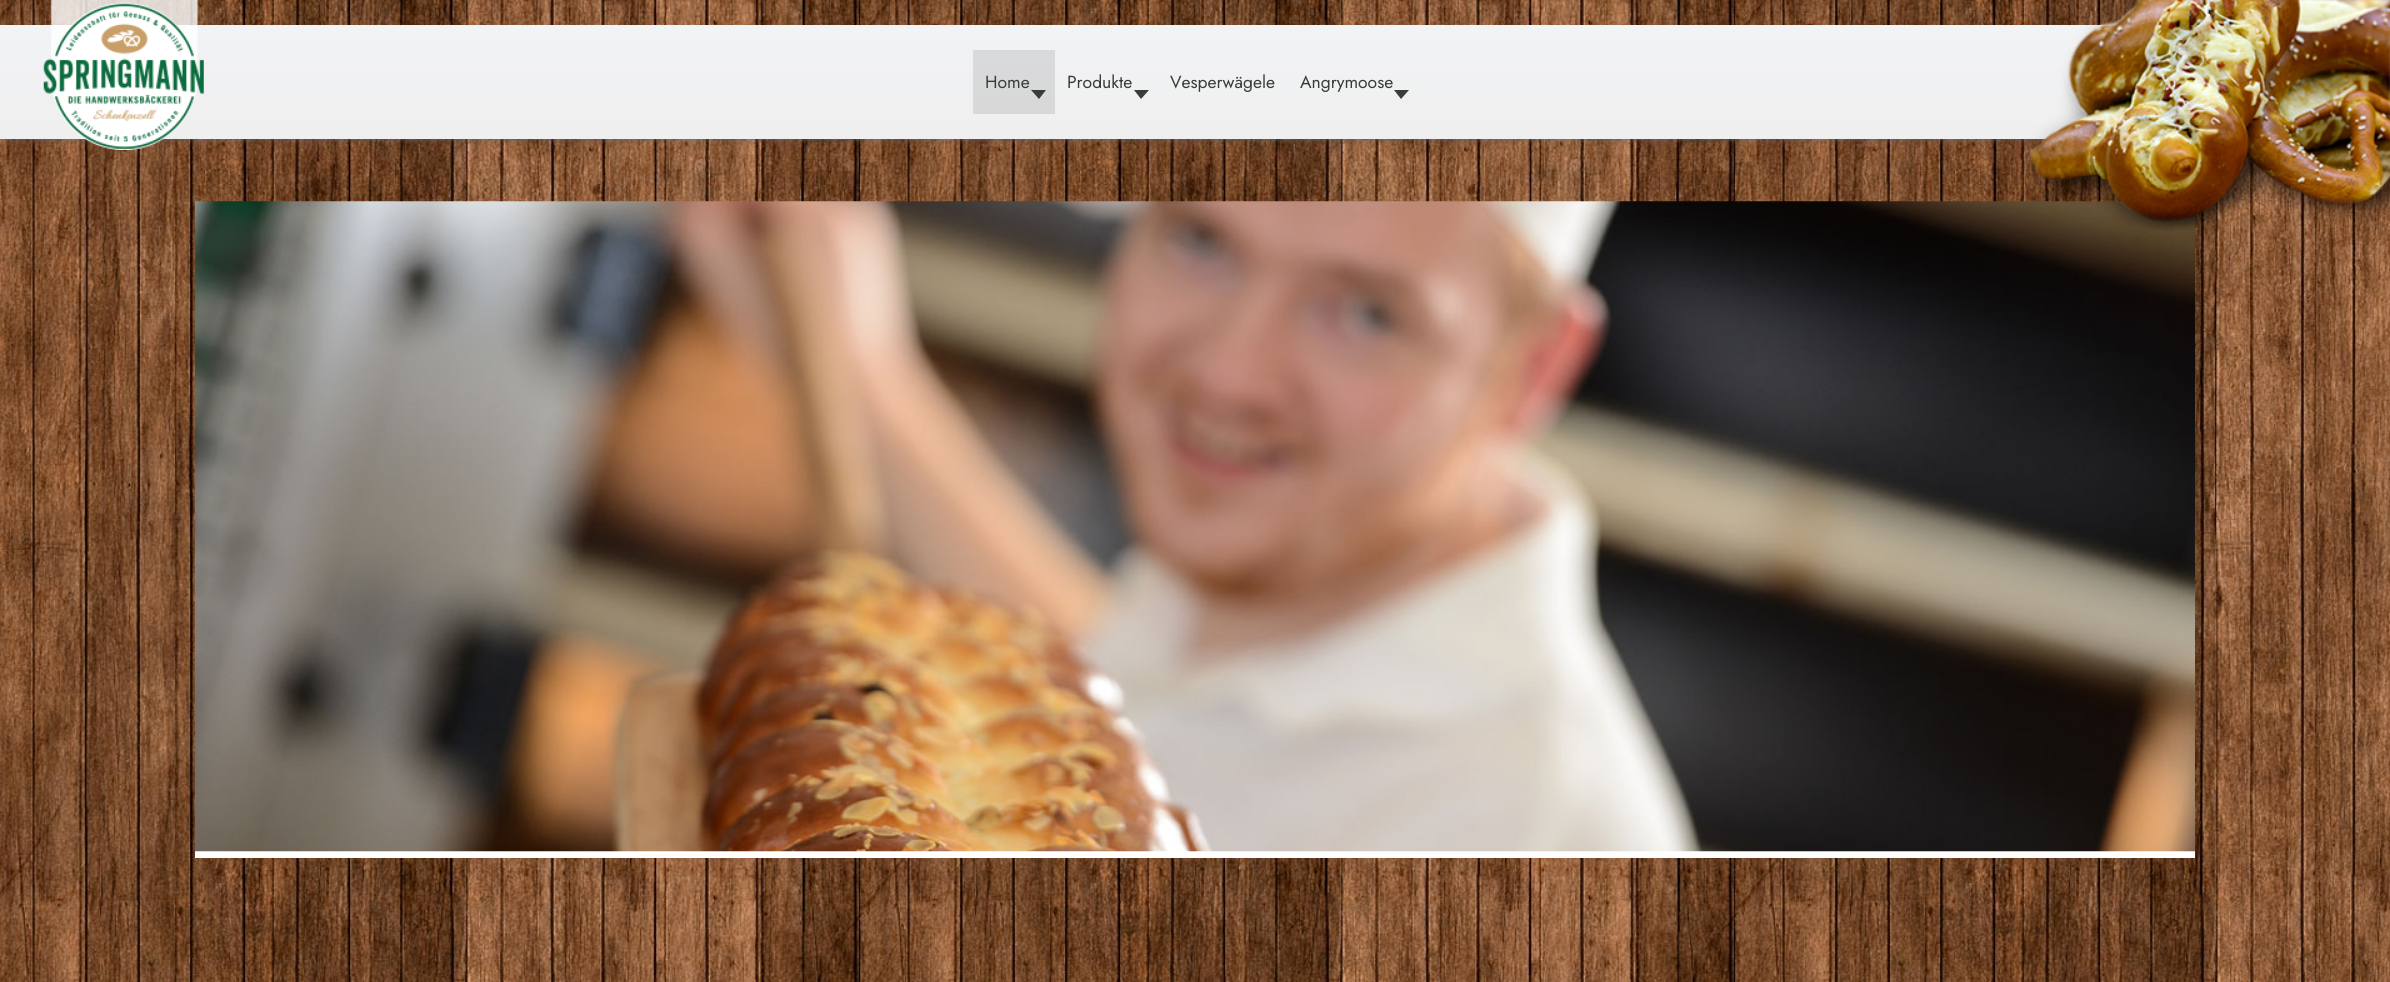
import math
import cairocffi as cairo

surface = cairo.ImageSurface(cairo.FORMAT_RGB24, 2390, 982)
ctx = cairo.Context(surface)
options = cairo.FontOptions()
options.set_hint_metrics(cairo.HINT_METRICS_OFF)
options.set_hint_style(cairo.HINT_STYLE_NONE)
ctx.set_font_options(options)
ctx.set_miter_limit(4)


def rgb(r, g, b):
    ctx.set_source_rgb(r / 255, g / 255, b / 255)


def face(family, size, italic, bold):
    ctx.select_font_face(family, cairo.FONT_SLANT_ITALIC if italic else cairo.FONT_SLANT_NORMAL, cairo.FONT_WEIGHT_BOLD if bold else cairo.FONT_WEIGHT_NORMAL)
    ctx.set_font_size(size)


def label(x, y, s):
    ctx.move_to(x, y)
    ctx.show_text(s)


def rect(x, y, w, h):
    ctx.rectangle(x, y, w, h)
    ctx.fill()


def rrect(x, y, w, h, r):
    ctx.new_sub_path()
    for i, (u, v) in enumerate([(x + w - r, y + h - r), (x + r, y + h - r), (x + r, y + r), (x + w - r, y + r)]):
        ctx.arc(u, v, r, i * math.pi / 2, (i + 1) * math.pi / 2)
    ctx.close_path()


def soft_shadow(x, y, w, h, r, blur, alpha):
    ctx.push_group_with_content(cairo.CONTENT_ALPHA)
    ctx.set_operator(cairo.OPERATOR_SOURCE)
    for i in range(15, -16, -2):
        e = blur * i / 6
        if min(w, h) + 2 * e > 0:
            ctx.set_source_rgba(0, 0, 0, alpha * math.erfc((i - 1) / 8.5) / 2)
            rrect(x - e, y - e, w + 2 * e, h + 2 * e, max(0, min(r + e + blur * .6, min(w, h) / 2 + e)))
            ctx.fill()
    ctx.mask(ctx.pop_group())


def image(path, x, y, w, h):
    ctx.save()
    ctx.set_source_surface(cairo.ImageSurface.create_from_png(path), x, y)
    ctx.rectangle(x, y, w, h)
    ctx.fill()
    ctx.restore()


rgb(255, 255, 255)
ctx.paint()
image('image0.png', 0, 0, 2390, 982)
rgb(105, 105, 105)
soft_shadow(4, 33, 2382, 106, 0, 3, 1)
gradient = cairo.LinearGradient(1195, 25, 1195, 139)
gradient.add_color_stop_rgba(0, 0.949, 0.953, 0.961, 1)
gradient.add_color_stop_rgba(1, 0.937, 0.937, 0.937, 1)
ctx.set_source(gradient)
rect(0, 25, 2390, 114)
image('image1.png', 43, 0, 161, 150)
ctx.set_source_rgba(0, 0, 0, 0.1)
rect(973, 50, 82, 64)
face('Jost', 17.5, 0, 0)
rgb(59, 59, 59)
label(985, 88, 'Home')
ctx.new_path()
ctx.move_to(1031, 90)
ctx.line_to(1046, 90)
ctx.line_to(1039, 99)
ctx.close_path()
ctx.fill()
label(1067, 88, 'Produkte')
ctx.new_path()
ctx.move_to(1134, 90)
ctx.line_to(1149, 90)
ctx.line_to(1141, 99)
ctx.close_path()
ctx.fill()
label(1170, 88, 'Vesperwägele')
label(1300, 88, 'Angrymoose')
ctx.new_path()
ctx.move_to(1394, 90)
ctx.line_to(1409, 90)
ctx.line_to(1401, 99)
ctx.close_path()
ctx.fill()
rgb(255, 255, 255)
rect(195, 851, 2000, 7)
image('image3.png', 195, 201, 2000, 651)
image('image2.png', 2027, 0, 363, 231)
surface.write_to_png('render.png')
